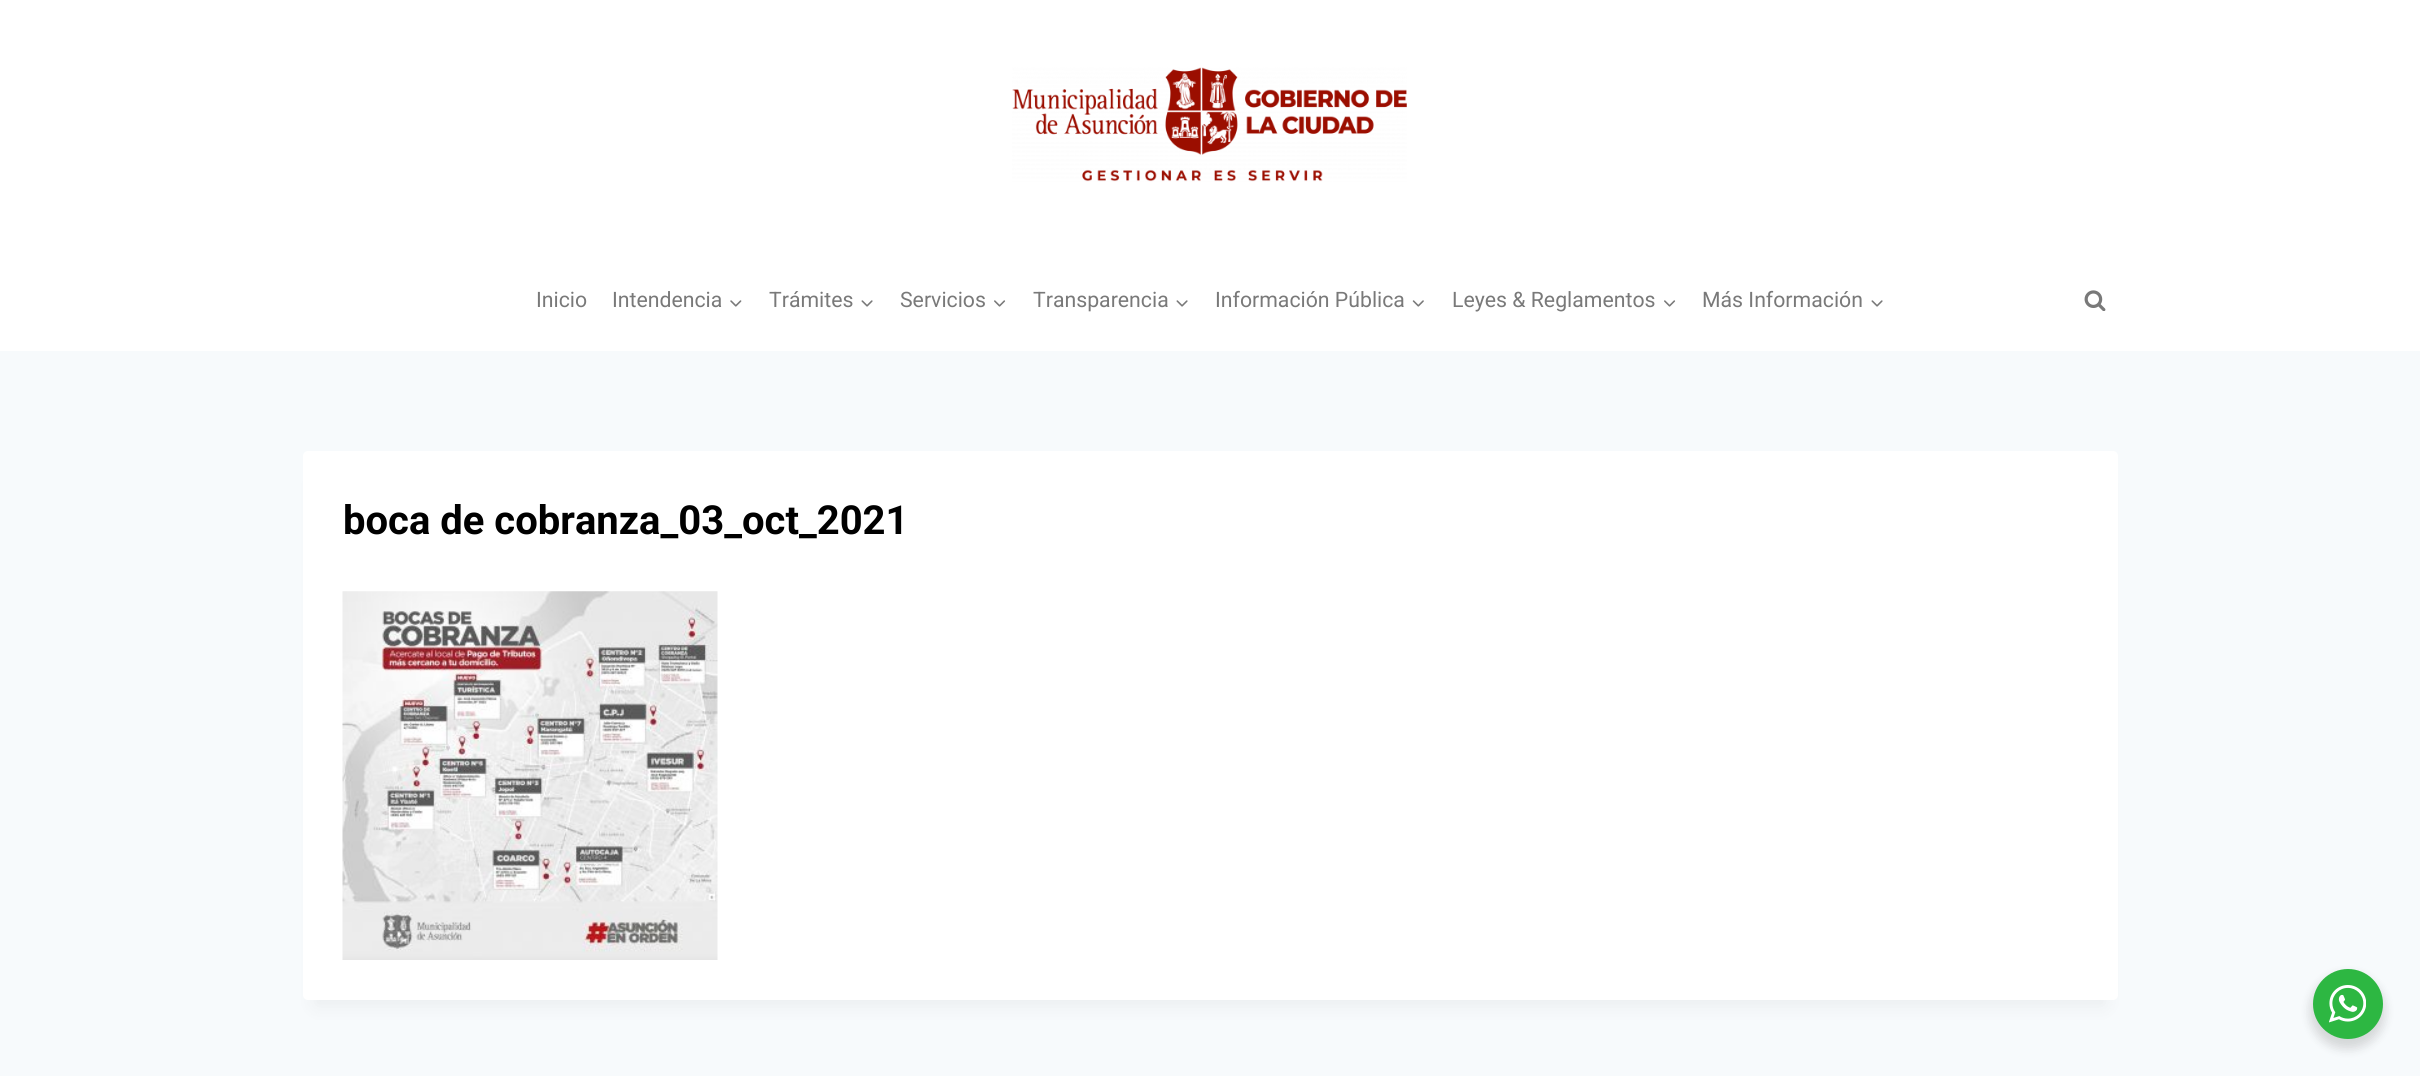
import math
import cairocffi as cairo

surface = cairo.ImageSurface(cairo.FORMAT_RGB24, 2420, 1076)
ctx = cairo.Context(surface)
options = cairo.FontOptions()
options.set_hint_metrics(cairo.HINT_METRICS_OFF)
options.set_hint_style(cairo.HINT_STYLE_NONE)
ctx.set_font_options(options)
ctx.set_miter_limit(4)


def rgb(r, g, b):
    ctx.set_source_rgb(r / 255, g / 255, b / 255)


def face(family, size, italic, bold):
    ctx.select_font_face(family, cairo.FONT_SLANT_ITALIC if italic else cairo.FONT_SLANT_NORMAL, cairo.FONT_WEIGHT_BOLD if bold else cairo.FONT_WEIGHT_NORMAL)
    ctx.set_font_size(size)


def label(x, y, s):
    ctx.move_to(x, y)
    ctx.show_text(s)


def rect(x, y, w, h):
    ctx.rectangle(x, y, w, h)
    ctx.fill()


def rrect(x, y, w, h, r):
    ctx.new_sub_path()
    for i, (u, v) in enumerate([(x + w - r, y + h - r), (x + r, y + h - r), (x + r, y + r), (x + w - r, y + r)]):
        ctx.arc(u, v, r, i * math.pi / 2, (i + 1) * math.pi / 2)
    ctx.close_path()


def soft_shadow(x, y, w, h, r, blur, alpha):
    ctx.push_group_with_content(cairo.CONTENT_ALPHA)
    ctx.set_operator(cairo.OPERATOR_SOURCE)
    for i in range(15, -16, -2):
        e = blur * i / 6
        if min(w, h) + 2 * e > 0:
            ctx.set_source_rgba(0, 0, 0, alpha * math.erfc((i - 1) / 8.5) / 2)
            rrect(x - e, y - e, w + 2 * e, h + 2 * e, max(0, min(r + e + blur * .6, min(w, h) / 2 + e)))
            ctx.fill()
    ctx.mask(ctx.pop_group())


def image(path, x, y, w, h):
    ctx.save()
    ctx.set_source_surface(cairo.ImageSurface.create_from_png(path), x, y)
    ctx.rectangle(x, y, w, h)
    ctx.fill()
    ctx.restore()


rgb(247, 250, 252)
ctx.paint()
rgb(255, 255, 255)
rect(0, 0, 2420, 351)
image('image0.png', 1012, 67, 395, 115)
face('Roboto', 21.25, 0, 0)
rgb(121, 121, 121)
label(536, 307, 'Inicio')
label(612, 307, 'Intendencia')
image('image1.png', 730, 300, 12, 7)
label(769, 307, 'Trámites')
image('image2.png', 861, 300, 12, 7)
label(900, 307, 'Servicios')
image('image3.png', 994, 300, 12, 7)
label(1033, 307, 'Transparencia')
image('image2.png', 1176, 300, 12, 7)
label(1215, 307, 'Información Pública')
image('image4.png', 1412, 300, 12, 7)
label(1452, 307, 'Leyes & Reglamentos')
image('image3.png', 1664, 300, 12, 7)
label(1702, 307, 'Más Información')
image('image2.png', 1871, 300, 12, 7)
image('image5.png', 2084, 290, 22, 21)
rgb(0, 0, 0)
soft_shadow(315, 483, 1790, 523, 0, 9.5, 0.05)
rgb(255, 255, 255)
rrect(303, 451, 1815, 549, 5)
ctx.fill()
face('Roboto', 40, 0, 1)
rgb(0, 0, 0)
label(343, 534, 'boca de cobranza_03_oct_2021')
image('image6.png', 342, 591, 376, 369)
rgb(0, 0, 0)
soft_shadow(2310, 974, 75, 75, 37.5, 5, 0.14)
rgb(45, 183, 66)
ctx.arc(2348, 1004, 35, 0, 2 * math.pi)
ctx.fill()
image('image7.png', 2329, 985, 37, 38)
surface.write_to_png('render.png')
